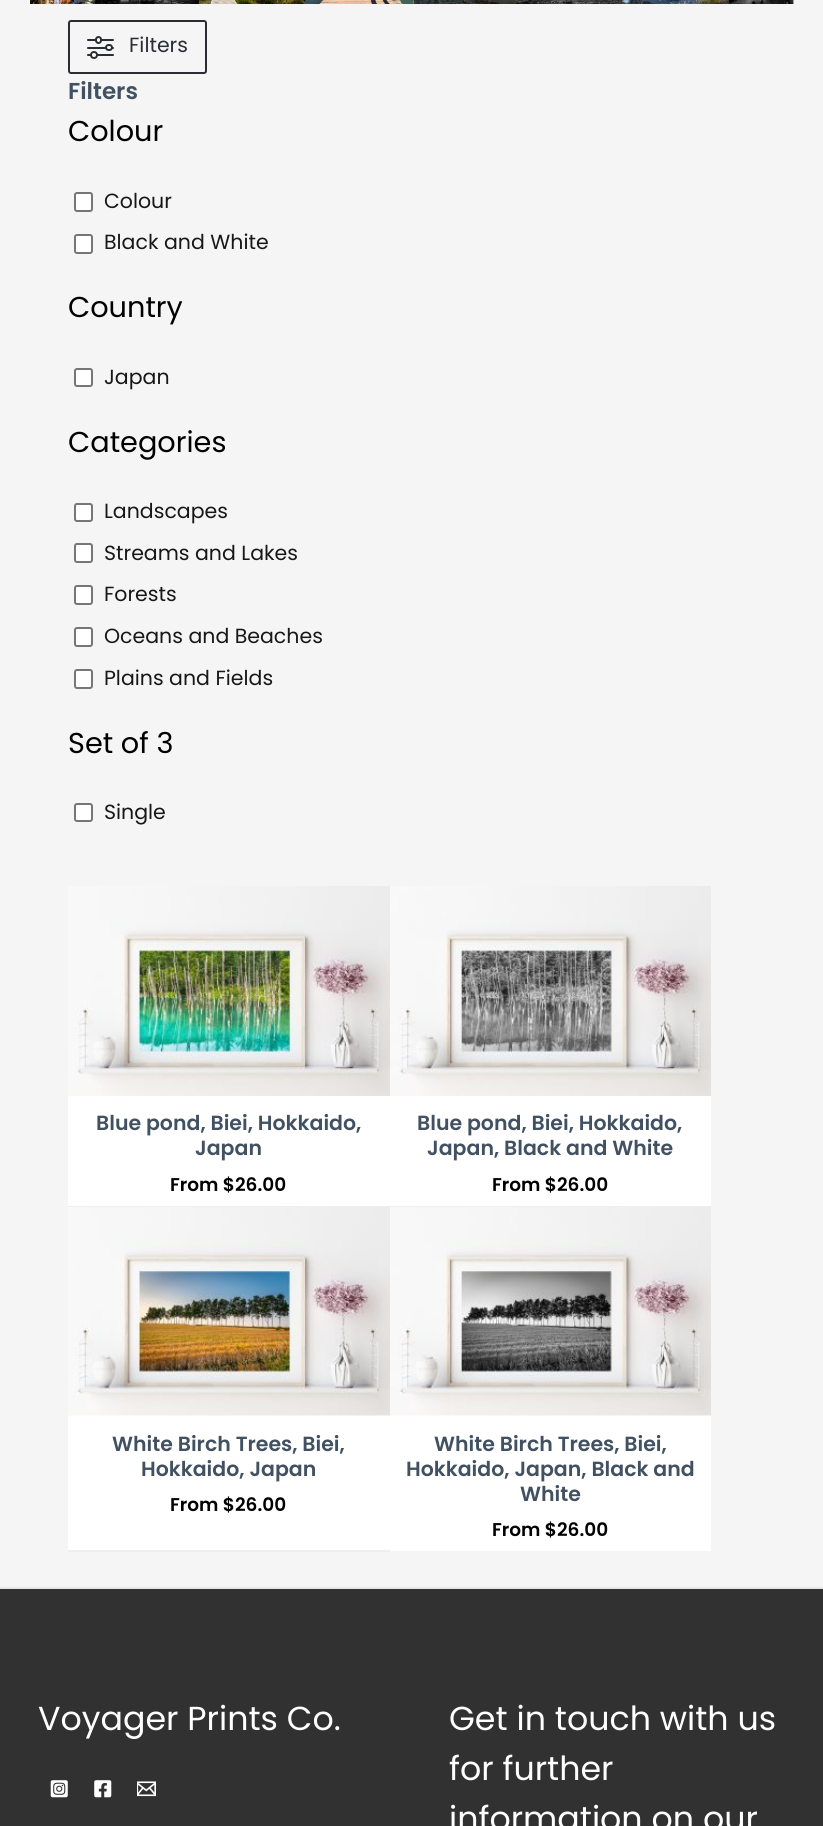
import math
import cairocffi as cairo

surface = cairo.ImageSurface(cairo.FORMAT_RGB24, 823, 1826)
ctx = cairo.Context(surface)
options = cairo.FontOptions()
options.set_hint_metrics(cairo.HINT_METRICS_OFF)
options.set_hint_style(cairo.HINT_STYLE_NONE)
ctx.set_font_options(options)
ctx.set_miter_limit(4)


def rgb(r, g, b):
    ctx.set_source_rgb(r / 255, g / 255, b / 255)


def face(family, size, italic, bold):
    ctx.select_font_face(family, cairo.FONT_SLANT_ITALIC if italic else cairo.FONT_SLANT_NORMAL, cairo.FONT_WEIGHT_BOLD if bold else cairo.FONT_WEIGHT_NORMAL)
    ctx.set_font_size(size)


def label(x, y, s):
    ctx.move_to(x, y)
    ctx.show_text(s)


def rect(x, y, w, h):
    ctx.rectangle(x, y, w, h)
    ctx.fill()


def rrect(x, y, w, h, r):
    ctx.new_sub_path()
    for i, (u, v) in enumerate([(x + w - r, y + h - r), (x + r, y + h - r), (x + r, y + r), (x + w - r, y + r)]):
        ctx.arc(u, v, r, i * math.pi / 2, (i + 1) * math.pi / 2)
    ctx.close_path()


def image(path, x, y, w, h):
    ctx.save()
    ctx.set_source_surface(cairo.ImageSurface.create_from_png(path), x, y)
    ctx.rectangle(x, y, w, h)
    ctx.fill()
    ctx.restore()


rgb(245, 245, 245)
ctx.paint()
image('image0.png', 30, 0, 764, 4)
rrect(69, 21, 137, 52, 2)
rgb(44, 45, 51)
ctx.stroke()
rrect(87, 39, 27, 2, 1)
ctx.fill()
rgb(255, 255, 255)
rrect(96, 37, 5, 6, 2.5)
ctx.fill_preserve()
rgb(44, 45, 51)
ctx.stroke()
rrect(87, 47, 27, 2, 1)
ctx.fill()
rgb(255, 255, 255)
rrect(106, 45, 6, 5, 2.5)
ctx.fill_preserve()
rgb(44, 45, 51)
ctx.stroke()
rrect(87, 54, 27, 2, 1)
ctx.fill()
rgb(255, 255, 255)
ctx.arc(94, 55, 3, 0, 2 * math.pi)
ctx.fill_preserve()
rgb(44, 45, 51)
ctx.stroke()
face('Poppins', 20.5, 0, 0)
label(129, 52, 'Filters')
face('Poppins SemiBold', 23, 0, 0)
rgb(65, 81, 97)
label(68, 99, 'Filters')
face('Poppins', 28.75, 0, 0)
rgb(0, 0, 0)
label(68, 141, 'Colour')
rgb(255, 255, 255)
rrect(75, 193, 17, 18, 2)
ctx.fill_preserve()
rgb(118, 118, 118)
ctx.stroke()
face('Poppins', 20.5, 0, 0)
rgb(24, 23, 23)
label(104, 208, 'Colour')
rgb(255, 255, 255)
rrect(75, 235, 17, 18, 2)
ctx.fill_preserve()
rgb(118, 118, 118)
ctx.stroke()
rgb(24, 23, 23)
label(104, 249, 'Black and White')
face('Poppins', 28.75, 0, 0)
rgb(0, 0, 0)
label(68, 317, 'Country')
rgb(255, 255, 255)
rrect(75, 369, 17, 17, 2)
ctx.fill_preserve()
rgb(118, 118, 118)
ctx.stroke()
face('Poppins', 20.5, 0, 0)
rgb(24, 23, 23)
label(104, 384, 'Japan')
face('Poppins', 28.75, 0, 0)
rgb(0, 0, 0)
label(68, 452, 'Categories')
rgb(255, 255, 255)
rrect(75, 504, 17, 17, 2)
ctx.fill_preserve()
rgb(118, 118, 118)
ctx.stroke()
face('Poppins', 20.5, 0, 0)
rgb(24, 23, 23)
label(104, 518, 'Landscapes')
rgb(255, 255, 255)
rrect(75, 544, 17, 18, 2)
ctx.fill_preserve()
rgb(118, 118, 118)
ctx.stroke()
rgb(24, 23, 23)
label(104, 560, 'Streams and Lakes')
rgb(255, 255, 255)
rrect(75, 586, 17, 18, 2)
ctx.fill_preserve()
rgb(118, 118, 118)
ctx.stroke()
rgb(24, 23, 23)
label(104, 601, 'Forests')
rgb(255, 255, 255)
rrect(75, 628, 17, 18, 2)
ctx.fill_preserve()
rgb(118, 118, 118)
ctx.stroke()
rgb(24, 23, 23)
label(104, 643, 'Oceans and Beaches')
rgb(255, 255, 255)
rrect(75, 670, 17, 18, 2)
ctx.fill_preserve()
rgb(118, 118, 118)
ctx.stroke()
rgb(24, 23, 23)
label(104, 685, 'Plains and Fields')
face('Poppins', 28.75, 0, 0)
rgb(0, 0, 0)
label(68, 753, 'Set of 3')
rgb(255, 255, 255)
rrect(75, 804, 17, 17, 2)
ctx.fill_preserve()
rgb(118, 118, 118)
ctx.stroke()
face('Poppins', 20.5, 0, 0)
rgb(24, 23, 23)
label(104, 819, 'Single')
rgb(255, 255, 255)
rect(68, 1096, 643, 110)
rgb(238, 238, 238)
rect(68, 1206, 643, 1)
image('image1.png', 68, 886, 322, 210)
face('Poppins SemiBold', 20.5, 0, 0)
rgb(65, 81, 97)
label(96, 1130, 'Blue pond, Biei, Hokkaido,')
label(195, 1155, 'Japan')
face('Poppins SemiBold', 18.5, 0, 0)
rgb(0, 0, 0)
label(170, 1191, 'From $26.00')
image('image2.png', 390, 886, 321, 210)
face('Poppins SemiBold', 20.5, 0, 0)
rgb(65, 81, 97)
label(417, 1130, 'Blue pond, Biei, Hokkaido,')
label(427, 1155, 'Japan, Black and White')
face('Poppins SemiBold', 18.5, 0, 0)
rgb(0, 0, 0)
label(492, 1191, 'From $26.00')
rgb(255, 255, 255)
rect(68, 1415, 322, 135)
rgb(238, 238, 238)
rect(68, 1550, 322, 2)
image('image3.png', 68, 1207, 322, 209)
face('Poppins SemiBold', 20.5, 0, 0)
rgb(65, 81, 97)
label(112, 1451, 'White Birch Trees, Biei,')
label(141, 1476, 'Hokkaido, Japan')
face('Poppins SemiBold', 18.5, 0, 0)
rgb(0, 0, 0)
label(170, 1511, 'From $26.00')
rgb(255, 255, 255)
rect(390, 1415, 321, 136)
image('image4.png', 390, 1207, 321, 209)
face('Poppins SemiBold', 20.5, 0, 0)
rgb(65, 81, 97)
label(434, 1451, 'White Birch Trees, Biei,')
label(406, 1476, 'Hokkaido, Japan, Black and')
label(520, 1501, 'White')
face('Poppins SemiBold', 18.5, 0, 0)
rgb(0, 0, 0)
label(492, 1536, 'From $26.00')
rgb(49, 49, 49)
rect(0, 1589, 823, 237)
rgb(230, 230, 230)
rect(0, 1587, 823, 2)
face('Poppins', 33.25, 0, 0)
rgb(255, 255, 255)
label(38, 1730, 'Voyager Prints Co.')
image('image5.png', 50, 1780, 18, 18)
image('image6.png', 94, 1780, 18, 18)
image('image7.png', 137, 1781, 19, 16)
label(449, 1730, 'Get in touch with us')
label(449, 1780, 'for further')
label(449, 1830, 'information on our')
surface.write_to_png('render.png')
